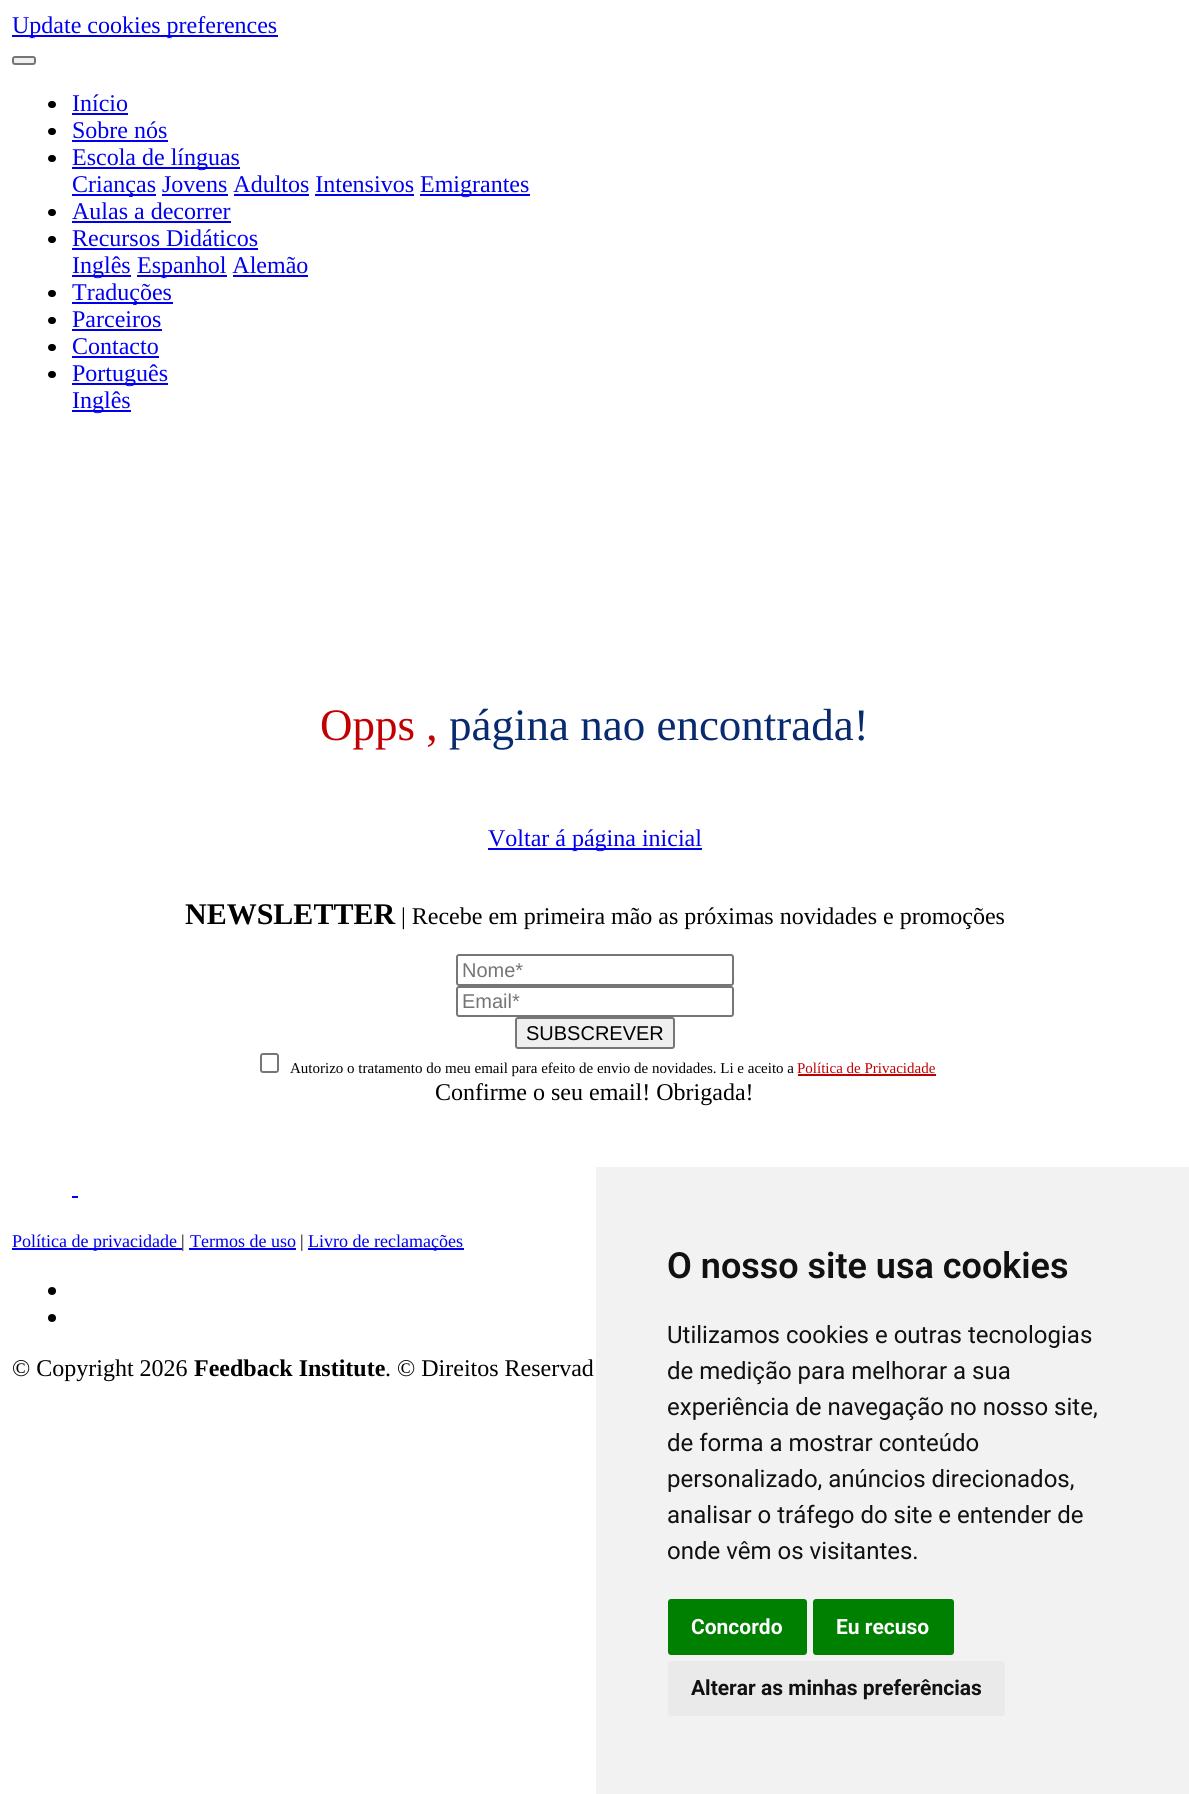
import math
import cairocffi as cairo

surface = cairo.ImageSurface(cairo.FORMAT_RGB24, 1189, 1794)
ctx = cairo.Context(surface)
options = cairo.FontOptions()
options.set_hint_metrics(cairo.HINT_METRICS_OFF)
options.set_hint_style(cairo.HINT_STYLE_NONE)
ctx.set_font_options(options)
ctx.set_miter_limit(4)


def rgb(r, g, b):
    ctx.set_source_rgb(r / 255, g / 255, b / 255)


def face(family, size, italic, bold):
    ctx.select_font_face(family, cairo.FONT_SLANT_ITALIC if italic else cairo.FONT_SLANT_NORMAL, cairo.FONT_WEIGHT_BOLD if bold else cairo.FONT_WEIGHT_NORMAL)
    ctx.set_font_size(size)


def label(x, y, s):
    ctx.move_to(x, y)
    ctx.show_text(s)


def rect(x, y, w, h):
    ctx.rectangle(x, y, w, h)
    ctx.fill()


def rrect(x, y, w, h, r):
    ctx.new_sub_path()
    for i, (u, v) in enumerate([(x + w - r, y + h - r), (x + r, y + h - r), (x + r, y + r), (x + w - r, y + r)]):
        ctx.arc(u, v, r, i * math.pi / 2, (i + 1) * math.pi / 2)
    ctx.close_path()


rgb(255, 255, 255)
ctx.paint()
rgb(0, 0, 238)
rect(12, 35, 266, 2)
face('Liberation Serif', 24, 0, 0)
label(12, 33, 'Update cookies preferences')
rgb(239, 239, 239)
rrect(13, 57, 22, 7, 2)
ctx.fill_preserve()
rgb(118, 118, 118)
ctx.stroke()
rgb(0, 0, 0)
rrect(48, 101, 8, 7, 3.5)
ctx.fill()
rgb(0, 0, 238)
label(72, 111, 'Início')
rect(72, 113, 56, 2)
rgb(0, 0, 0)
rrect(48, 128, 8, 7, 3.5)
ctx.fill()
rgb(0, 0, 238)
label(72, 138, 'Sobre nós')
rect(72, 140, 96, 2)
rgb(0, 0, 0)
rrect(48, 155, 8, 7, 3.5)
ctx.fill()
rgb(0, 0, 238)
rect(72, 167, 168, 2)
label(72, 165, 'Escola de línguas')
rect(72, 194, 84, 2)
label(72, 192, 'Crianças Jovens Adultos Intensivos')
rect(420, 194, 110, 2)
label(420, 192, 'Emigrantes')
rect(162, 194, 66, 2)
rect(234, 194, 75, 2)
rect(315, 194, 99, 2)
rgb(0, 0, 0)
rrect(48, 209, 8, 7, 3.5)
ctx.fill()
rgb(0, 0, 238)
label(72, 219, 'Aulas a decorrer')
rect(72, 221, 159, 2)
rgb(0, 0, 0)
rrect(48, 236, 8, 7, 3.5)
ctx.fill()
rgb(0, 0, 238)
label(72, 246, 'Recursos Didáticos')
rect(72, 248, 186, 2)
rect(72, 275, 59, 2)
label(72, 273, 'Inglês')
rect(137, 275, 90, 2)
label(137, 273, 'Espanhol Alemão')
rect(233, 275, 75, 2)
rgb(0, 0, 0)
rrect(48, 290, 8, 7, 3.5)
ctx.fill()
rgb(0, 0, 238)
rect(72, 302, 101, 2)
label(72, 300, 'Traduções')
rgb(0, 0, 0)
rrect(48, 317, 8, 7, 3.5)
ctx.fill()
rgb(0, 0, 238)
label(72, 327, 'Parceiros')
rect(72, 329, 90, 2)
rgb(0, 0, 0)
rrect(48, 344, 8, 7, 3.5)
ctx.fill()
rgb(0, 0, 238)
label(72, 354, 'Contacto')
rect(72, 356, 87, 2)
rgb(0, 0, 0)
rrect(48, 371, 8, 7, 3.5)
ctx.fill()
rgb(0, 0, 238)
rect(72, 383, 96, 2)
label(72, 381, 'Português')
rect(72, 410, 59, 2)
label(72, 408, 'Inglês')
face('Liberation Serif', 45, 0, 0)
rgb(192, 0, 2)
label(320, 740, 'Opps ,')
rgb(8, 42, 111)
label(449, 740, 'página nao encontrada!')
rgb(0, 0, 238)
rect(488, 848, 214, 2)
face('Liberation Serif', 24, 0, 0)
label(488, 846, 'Voltar á página inicial')
face('Liberation Serif', 30, 0, 1)
rgb(0, 0, 0)
label(185, 924, 'NEWSLETTER')
face('Liberation Serif', 24, 0, 0)
label(401, 924, '| Recebe em primeira mão as próximas novidades e promoções')
rrect(457, 955, 276, 30, 2)
rgb(118, 118, 118)
ctx.stroke()
face('Liberation Sans', 20, 0, 0)
rgb(117, 117, 117)
label(462, 977, 'Nome*')
rrect(457, 987, 276, 29, 2)
rgb(118, 118, 118)
ctx.stroke()
rgb(117, 117, 117)
label(462, 1008, 'Email*')
rgb(239, 239, 239)
rrect(516, 1018, 158, 30, 2)
ctx.fill_preserve()
rgb(118, 118, 118)
ctx.stroke()
rgb(0, 0, 0)
label(526, 1040, 'SUBSCREVER')
rrect(261, 1054, 17, 18, 2)
rgb(118, 118, 118)
ctx.stroke()
face('Liberation Serif', 15, 0, 0)
rgb(0, 0, 0)
label(290, 1073, 'Autorizo o tratamento do meu email para efeito de envio de novidades. Li e aceito a')
rgb(192, 0, 2)
label(797, 1073, 'Política de Privacidade')
rect(798, 1074, 138, 2)
face('Liberation Serif', 24, 0, 0)
rgb(0, 0, 0)
label(435, 1100, 'Confirme o seu email! Obrigada!')
rgb(0, 0, 238)
rect(72, 1196, 6, 2)
rect(12, 1248, 170, 2)
face('Liberation Serif', 18, 0, 0)
label(12, 1247, 'Política de privacidade')
rgb(0, 0, 0)
label(181, 1247, '|')
rgb(0, 0, 238)
label(190, 1247, 'Termos de uso')
rect(189, 1248, 107, 2)
rgb(0, 0, 0)
label(300, 1247, '|')
rgb(0, 0, 238)
rect(308, 1248, 156, 2)
label(308, 1247, 'Livro de reclamações')
rgb(0, 0, 0)
ctx.new_path()
ctx.arc(52, 1291, 4, 0, 2 * math.pi)
ctx.fill()
ctx.arc(52, 1318, 4, 0, 2 * math.pi)
ctx.fill()
face('Liberation Serif', 24, 0, 0)
label(12, 1376, '© Copyright 2026')
face('Liberation Serif', 24, 0, 1)
label(194, 1376, 'Feedback Institute')
face('Liberation Serif', 24, 0, 0)
label(385, 1376, '. © Direitos Reservad')
rgb(242, 242, 242)
rect(596, 1167, 593, 627)
face('Roboto SemiBold', 36, 0, 0)
rgb(17, 17, 17)
label(667, 1278, 'O nosso site usa cookies')
face('Roboto', 24, 0, 0)
label(667, 1343, 'Utilizamos cookies e outras tecnologias')
label(667, 1379, 'de medição para melhorar a sua')
label(667, 1415, 'experiência de navegação no nosso site,')
label(667, 1451, 'de forma a mostrar conteúdo')
label(667, 1487, 'personalizado, anúncios direcionados,')
label(667, 1523, 'analisar o tráfego do site e entender de')
label(667, 1559, 'onde vêm os visitantes.')
rgb(0, 128, 0)
rrect(668, 1599, 139, 56, 3)
ctx.fill()
face('Roboto', 21, 0, 1)
rgb(255, 255, 255)
label(691, 1634, 'Concordo')
rgb(0, 128, 0)
rrect(813, 1599, 141, 56, 3)
ctx.fill()
rgb(255, 255, 255)
label(836, 1634, 'Eu recuso')
rgb(234, 234, 234)
rrect(668, 1661, 337, 55, 3)
ctx.fill()
rgb(17, 17, 17)
label(691, 1695, 'Alterar as minhas preferências')
surface.write_to_png('render.png')
